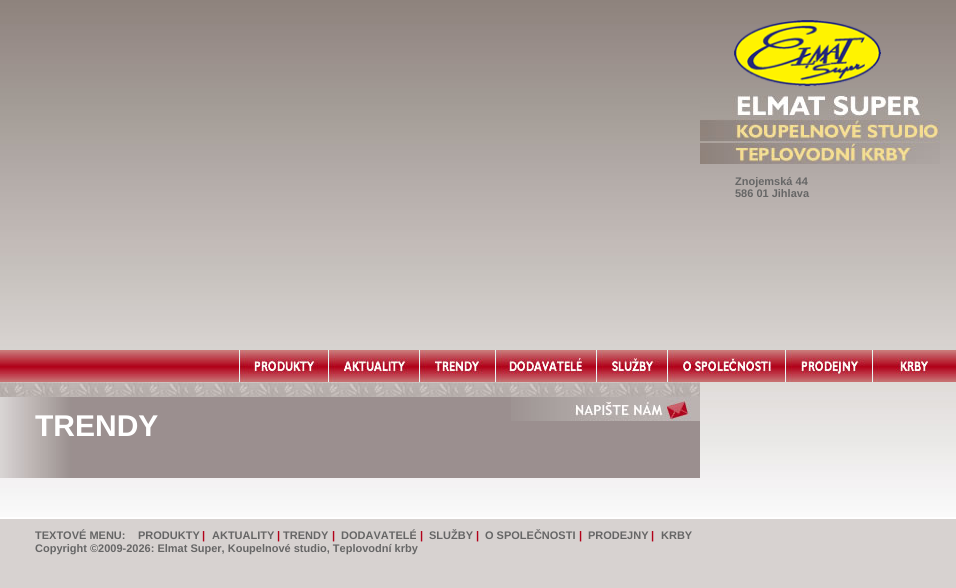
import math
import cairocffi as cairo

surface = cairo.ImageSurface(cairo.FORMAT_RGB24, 956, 588)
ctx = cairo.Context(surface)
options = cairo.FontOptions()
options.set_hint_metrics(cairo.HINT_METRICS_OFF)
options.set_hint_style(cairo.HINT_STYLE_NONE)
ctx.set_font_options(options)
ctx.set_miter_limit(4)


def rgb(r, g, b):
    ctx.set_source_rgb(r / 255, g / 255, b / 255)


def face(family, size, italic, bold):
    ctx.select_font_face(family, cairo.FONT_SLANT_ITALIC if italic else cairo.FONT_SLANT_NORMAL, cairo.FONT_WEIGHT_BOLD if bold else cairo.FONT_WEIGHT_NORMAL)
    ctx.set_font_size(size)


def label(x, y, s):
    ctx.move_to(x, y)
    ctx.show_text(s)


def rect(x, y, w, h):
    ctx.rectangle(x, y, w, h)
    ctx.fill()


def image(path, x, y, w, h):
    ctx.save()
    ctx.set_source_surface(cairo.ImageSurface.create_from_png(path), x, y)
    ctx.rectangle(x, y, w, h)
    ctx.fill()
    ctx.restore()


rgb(255, 255, 255)
ctx.paint()
image('image13.png', 0, 0, 956, 517)
image('image0.png', 734, 20, 147, 67)
image('image1.png', 700, 95, 240, 69)
face('Liberation Sans', 11, 0, 1)
rgb(102, 102, 102)
label(735, 185, 'Znojemská 44')
label(735, 197, '586 01 Jihlava')
image('image2.png', 0, 350, 956, 32)
image('image3.png', 239, 350, 80, 32)
image('image4.png', 328, 350, 80, 32)
image('image5.png', 419, 350, 64, 32)
image('image6.png', 495, 350, 88, 32)
image('image7.png', 596, 350, 64, 32)
image('image8.png', 667, 350, 104, 32)
image('image9.png', 785, 350, 80, 32)
image('image10.png', 872, 350, 56, 32)
image('image11.png', 0, 382, 700, 15)
image('image14.png', 0, 397, 700, 81)
image('image12.png', 511, 397, 189, 24)
face('Liberation Sans', 30, 0, 1)
rgb(255, 255, 255)
label(35, 436, 'TRENDY')
rgb(215, 210, 208)
rect(0, 519, 956, 69)
face('Liberation Sans', 11, 0, 1)
rgb(102, 102, 102)
label(35, 539, 'TEXTOVÉ MENU:')
label(138, 539, 'PRODUKTY')
rgb(178, 1, 25)
label(202, 539, '|')
rgb(102, 102, 102)
label(212, 539, 'AKTUALITY')
rgb(178, 1, 25)
label(277, 539, '|')
rgb(102, 102, 102)
label(283, 539, 'TRENDY')
rgb(178, 1, 25)
label(332, 539, '|')
rgb(102, 102, 102)
label(341, 539, 'DODAVATELÉ')
rgb(178, 1, 25)
label(420, 539, '|')
rgb(102, 102, 102)
label(429, 539, 'SLUŽBY')
rgb(178, 1, 25)
label(476, 539, '|')
rgb(102, 102, 102)
label(485, 539, 'O SPOLEČNOSTI')
rgb(178, 1, 25)
label(579, 539, '|')
rgb(102, 102, 102)
label(588, 539, 'PRODEJNY')
rgb(178, 1, 25)
label(651, 539, '|')
rgb(102, 102, 102)
label(661, 539, 'KRBY')
label(35, 552, 'Copyright ©2009-2026: Elmat Super, Koupelnové studio, Teplovodní krby')
surface.write_to_png('render.png')
